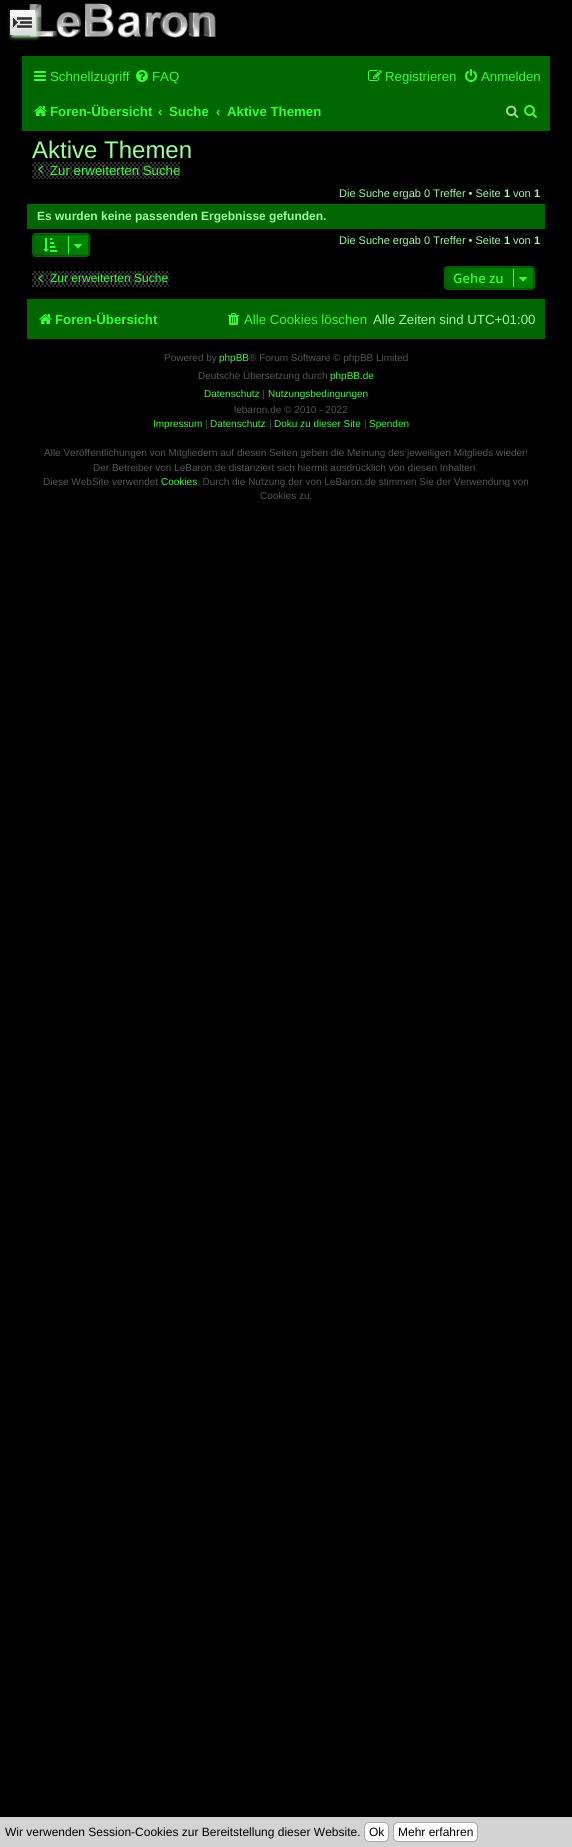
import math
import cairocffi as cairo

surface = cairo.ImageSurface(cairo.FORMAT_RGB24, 572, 1847)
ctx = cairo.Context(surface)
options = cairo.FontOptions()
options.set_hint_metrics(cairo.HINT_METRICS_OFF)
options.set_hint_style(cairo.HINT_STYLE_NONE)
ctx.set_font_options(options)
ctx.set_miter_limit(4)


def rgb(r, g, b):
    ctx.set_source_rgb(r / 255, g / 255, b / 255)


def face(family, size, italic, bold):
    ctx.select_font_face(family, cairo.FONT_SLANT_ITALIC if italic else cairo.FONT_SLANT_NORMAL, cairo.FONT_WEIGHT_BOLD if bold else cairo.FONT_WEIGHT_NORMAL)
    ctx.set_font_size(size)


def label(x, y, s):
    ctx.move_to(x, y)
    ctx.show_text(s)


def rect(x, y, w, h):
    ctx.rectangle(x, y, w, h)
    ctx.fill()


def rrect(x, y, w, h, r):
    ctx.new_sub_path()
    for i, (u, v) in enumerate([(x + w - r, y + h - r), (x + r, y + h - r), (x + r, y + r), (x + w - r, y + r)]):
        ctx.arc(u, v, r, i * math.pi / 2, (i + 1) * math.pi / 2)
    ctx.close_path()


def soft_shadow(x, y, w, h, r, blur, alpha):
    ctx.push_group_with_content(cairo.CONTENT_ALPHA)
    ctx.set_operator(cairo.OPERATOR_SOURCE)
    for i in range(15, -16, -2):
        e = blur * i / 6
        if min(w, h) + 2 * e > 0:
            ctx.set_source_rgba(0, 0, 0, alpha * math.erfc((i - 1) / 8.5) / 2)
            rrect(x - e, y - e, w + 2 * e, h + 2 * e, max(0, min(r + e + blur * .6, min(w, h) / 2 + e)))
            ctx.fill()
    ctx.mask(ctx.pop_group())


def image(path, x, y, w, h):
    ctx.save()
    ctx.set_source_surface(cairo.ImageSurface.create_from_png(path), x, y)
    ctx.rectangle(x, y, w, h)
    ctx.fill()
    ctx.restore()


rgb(0, 0, 0)
ctx.paint()
rgb(0, 102, 0)
rect(22, 56, 528, 75)
image('image0.png', 34, 71, 12, 10)
face('Liberation Sans', 13.25, 0, 0)
rgb(51, 255, 51)
label(50, 81, 'Schnellzugriff')
image('image1.png', 136, 70, 12, 12)
label(152, 81, 'FAQ')
image('image2.png', 368, 70, 14, 11)
label(385, 81, 'Registrieren')
image('image3.png', 465, 69, 12, 13)
label(481, 81, 'Anmelden')
image('image4.png', 34, 106, 13, 10)
face('Liberation Sans', 13.25, 0, 1)
label(50, 116, 'Foren-Übersicht')
label(158, 116, '‹')
label(169, 116, 'Suche')
label(216, 116, '‹')
label(227, 116, 'Aktive Themen')
image('image5.png', 506, 105, 13, 13)
image('image6.png', 524, 105, 13, 13)
image('image8.png', 29, 3, 187, 35)
rgb(204, 255, 204)
soft_shadow(12, 12, 25, 25, 0, 2, 1)
image('image7.png', 10, 10, 25, 25)
rgb(211, 211, 211)
rect(0, 1817, 572, 30)
face('Liberation Sans', 12, 0, 0)
rgb(0, 0, 0)
label(5, 1836, 'Wir verwenden Session-Cookies zur Bereitstellung dieser Website.')
rgb(255, 255, 255)
rrect(364.5, 1822.5, 24, 19, 4.5)
ctx.fill_preserve()
rgb(169, 169, 169)
ctx.set_line_width(1)
ctx.stroke()
rgb(0, 0, 0)
label(369, 1836, 'Ok')
rgb(255, 255, 255)
rrect(393.5, 1822.5, 84, 19, 4.5)
ctx.fill_preserve()
rgb(169, 169, 169)
ctx.stroke()
rgb(0, 0, 0)
label(398, 1836, 'Mehr erfahren')
face('Liberation Sans', 24, 0, 0)
rgb(153, 255, 153)
label(32, 158, 'Aktive Themen')
image('image9.png', 32, 162, 148, 17)
image('image10.png', 38, 165, 5, 9)
face('Liberation Sans', 13.25, 0, 0)
rgb(51, 255, 51)
label(50, 175, 'Zur erweiterten Suche')
face('Liberation Sans', 11, 0, 0)
rgb(153, 255, 153)
label(339, 197, 'Die Suche ergab 0 Treffer • Seite')
face('Liberation Sans', 11, 0, 1)
label(504, 197, '1')
face('Liberation Sans', 11, 0, 0)
label(513, 197, 'von')
face('Liberation Sans', 11, 0, 1)
label(534, 197, '1')
rgb(0, 102, 0)
rect(27, 204, 518, 25)
face('Liberation Sans', 12, 0, 1)
rgb(153, 255, 153)
label(37, 220, 'Es wurden keine passenden Ergebnisse gefunden.')
ctx.save()
rrect(32, 233, 58, 24, 4)
ctx.clip()
gradient = cairo.LinearGradient(42, 265, 81, 226)
gradient.add_color_stop_rgba(0, 0, 0.4, 0, 1)
gradient.add_color_stop_rgba(1, 0, 0.533, 0, 1)
ctx.set_source(gradient)
rect(33, 234, 56, 22)
ctx.restore()
rrect(33.5, 234.5, 55, 21, 2.5)
rgb(0, 85, 0)
ctx.stroke()
rrect(32.5, 233.5, 57, 23, 3.5)
rgb(0, 102, 0)
ctx.stroke()
image('image11.png', 43, 238, 14, 14)
rgb(51, 255, 51)
rect(68, 236, 1, 18)
image('image12.png', 74, 244, 8, 5)
face('Liberation Sans', 11, 0, 0)
rgb(153, 255, 153)
label(339, 244, 'Die Suche ergab 0 Treffer • Seite')
face('Liberation Sans', 11, 0, 1)
label(504, 244, '1')
face('Liberation Sans', 11, 0, 0)
label(513, 244, 'von')
face('Liberation Sans', 11, 0, 1)
label(534, 244, '1')
image('image13.png', 32, 271, 137, 16)
image('image10.png', 38, 274, 5, 9)
face('Liberation Sans', 12, 0, 0)
rgb(51, 255, 51)
label(50, 282, 'Zur erweiterten Suche')
ctx.save()
rrect(444, 266, 91, 24, 4)
ctx.clip()
gradient = cairo.LinearGradient(462, 306, 517, 250)
gradient.add_color_stop_rgba(0, 0, 0.4, 0, 1)
gradient.add_color_stop_rgba(1, 0, 0.533, 0, 1)
ctx.set_source(gradient)
rect(445, 267, 89, 22)
ctx.restore()
rrect(445.5, 267.5, 88, 21, 2.5)
rgb(0, 85, 0)
ctx.stroke()
rrect(444.5, 266.5, 90, 23, 3.5)
rgb(0, 102, 0)
ctx.stroke()
face('Open Sans SemiBold', 13, 0, 0)
rgb(51, 255, 51)
label(453, 283, 'Gehe zu')
rect(513, 269, 1, 18)
image('image14.png', 519, 277, 8, 5)
rgb(0, 102, 0)
rect(27, 299, 518, 40)
image('image4.png', 39, 314, 13, 10)
face('Liberation Sans', 13.25, 0, 1)
rgb(51, 255, 51)
label(55, 324, 'Foren-Übersicht')
image('image15.png', 228, 313, 11, 12)
face('Liberation Sans', 13.25, 0, 0)
label(244, 324, 'Alle Cookies löschen')
rgb(153, 255, 153)
label(373, 324, 'Alle Zeiten sind UTC+01:00')
face('Liberation Sans', 10, 0, 0)
rgb(85, 85, 85)
label(164, 361, 'Powered by')
rgb(51, 255, 51)
label(219, 361, 'phpBB')
rgb(85, 85, 85)
label(249, 361, '® Forum Software © phpBB Limited')
label(198, 379, 'Deutsche Übersetzung durch')
rgb(51, 255, 51)
label(330, 379, 'phpBB.de')
label(204, 397, 'Datenschutz')
rgb(85, 85, 85)
label(262, 397, '|')
rgb(51, 255, 51)
label(268, 397, 'Nutzungsbedingungen')
rgb(85, 85, 85)
label(234, 413, 'lebaron.de © 2010 - 2022')
rgb(51, 255, 51)
label(153, 427, 'Impressum')
rgb(85, 85, 85)
label(205, 427, '|')
rgb(51, 255, 51)
label(210, 427, 'Datenschutz')
rgb(85, 85, 85)
label(269, 427, '|')
rgb(51, 255, 51)
label(274, 427, 'Doku zu dieser Site')
rgb(85, 85, 85)
label(364, 427, '|')
rgb(51, 255, 51)
label(369, 427, 'Spenden')
rgb(85, 85, 85)
label(44, 456, 'Alle Veröffentlichungen von Mitgliedern auf diesen Seiten geben die Meinung des jeweiligen Mitglieds wieder!')
label(93, 471, 'Der Betreiber von LeBaron.de distanziert sich hiermit ausdrücklich von diesen Inhalten.')
label(43, 485, 'Diese WebSite verwendet')
rgb(51, 255, 51)
label(161, 485, 'Cookies')
rgb(85, 85, 85)
label(197, 485, '. Durch die Nutzung der von LeBaron.de stimmen Sie der Verwendung von')
label(260, 499, 'Cookies zu.')
surface.write_to_png('render.png')
